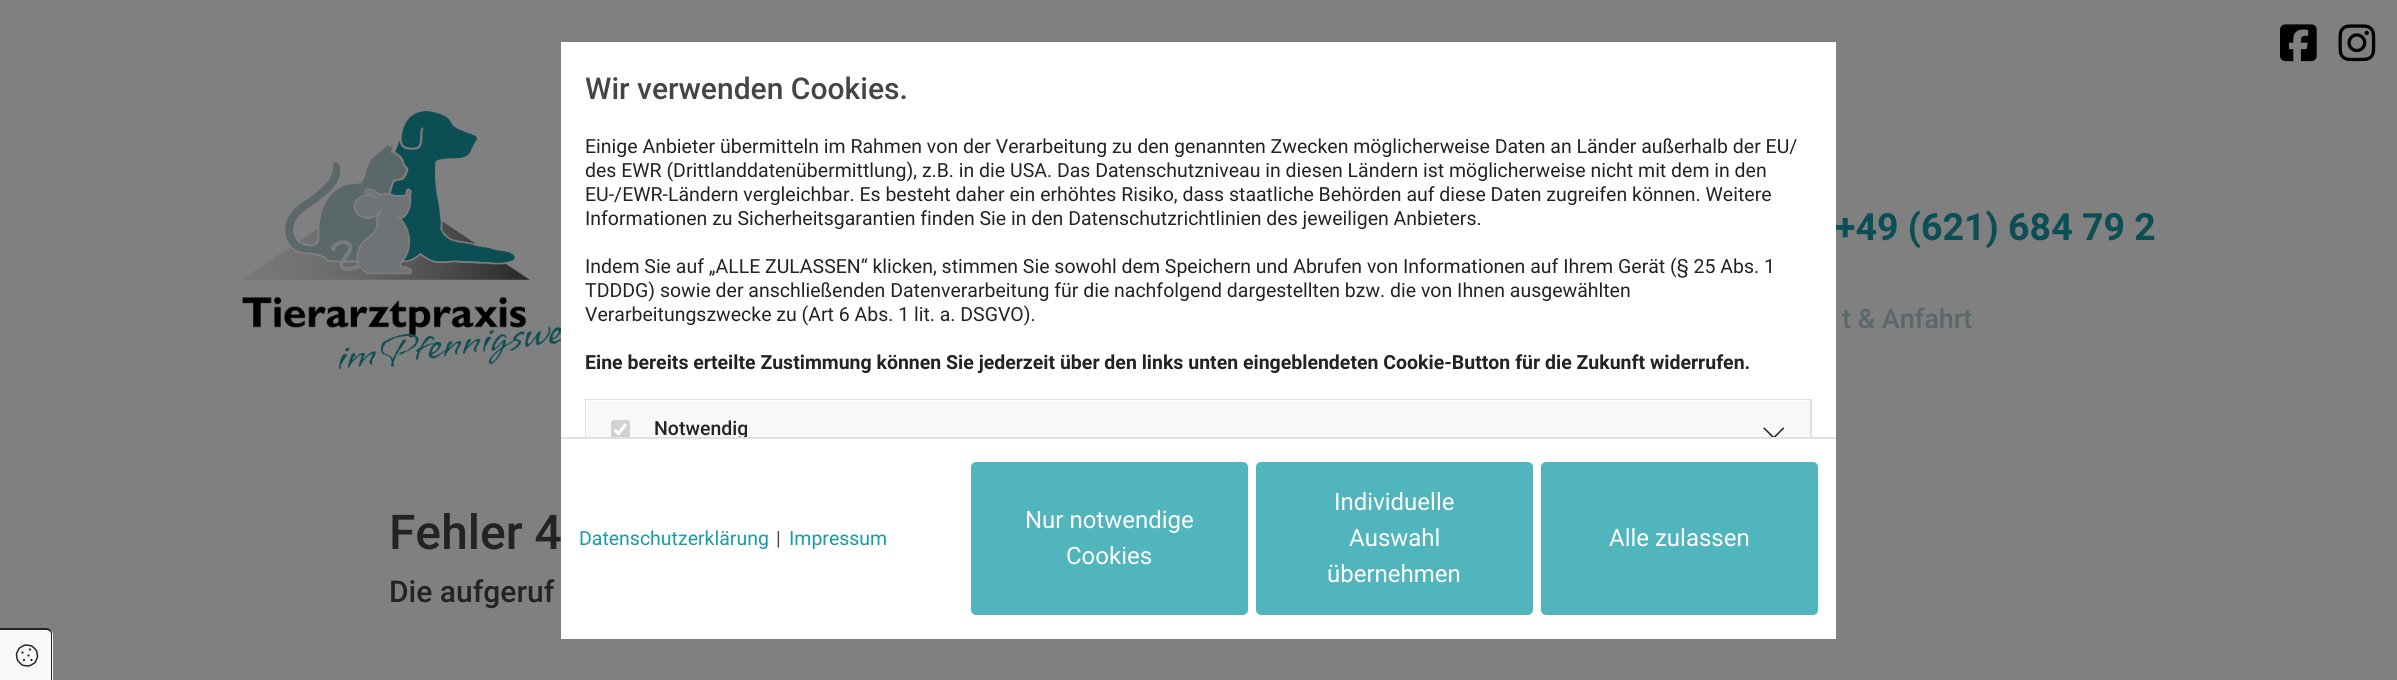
import math
import cairocffi as cairo

surface = cairo.ImageSurface(cairo.FORMAT_RGB24, 2397, 680)
ctx = cairo.Context(surface)
options = cairo.FontOptions()
options.set_hint_metrics(cairo.HINT_METRICS_OFF)
options.set_hint_style(cairo.HINT_STYLE_NONE)
ctx.set_font_options(options)
ctx.set_miter_limit(4)


def rgb(r, g, b):
    ctx.set_source_rgb(r / 255, g / 255, b / 255)


def face(family, size, italic, bold):
    ctx.select_font_face(family, cairo.FONT_SLANT_ITALIC if italic else cairo.FONT_SLANT_NORMAL, cairo.FONT_WEIGHT_BOLD if bold else cairo.FONT_WEIGHT_NORMAL)
    ctx.set_font_size(size)


def label(x, y, s):
    ctx.move_to(x, y)
    ctx.show_text(s)


def rect(x, y, w, h):
    ctx.rectangle(x, y, w, h)
    ctx.fill()


def rrect(x, y, w, h, r):
    ctx.new_sub_path()
    for i, (u, v) in enumerate([(x + w - r, y + h - r), (x + r, y + h - r), (x + r, y + r), (x + w - r, y + r)]):
        ctx.arc(u, v, r, i * math.pi / 2, (i + 1) * math.pi / 2)
    ctx.close_path()


def image(path, x, y, w, h):
    ctx.save()
    ctx.set_source_surface(cairo.ImageSurface.create_from_png(path), x, y)
    ctx.rectangle(x, y, w, h)
    ctx.fill()
    ctx.restore()


rgb(128, 128, 128)
ctx.paint()
rgb(255, 255, 255)
rect(561, 42, 1275, 597)
face('Roboto Medium', 30, 0, 0)
rgb(69, 69, 69)
label(585, 99, 'Wir verwenden Cookies.')
face('Roboto', 19.5, 0, 0)
rgb(35, 35, 35)
label(585, 153, 'Einige Anbieter übermitteln im Rahmen von der Verarbeitung zu den genannten Zwecken möglicherweise Daten an Länder außerhalb der EU/')
label(585, 177, 'des EWR (Drittlanddatenübermittlung), z.B. in die USA. Das Datenschutzniveau in diesen Ländern ist möglicherweise nicht mit dem in den')
label(585, 201, 'EU-/EWR-Ländern vergleichbar. Es besteht daher ein erhöhtes Risiko, dass staatliche Behörden auf diese Daten zugreifen können. Weitere')
label(585, 225, 'Informationen zu Sicherheitsgarantien finden Sie in den Datenschutzrichtlinien des jeweiligen Anbieters.')
label(585, 273, 'Indem Sie auf „ALLE ZULASSEN“ klicken, stimmen Sie sowohl dem Speichern und Abrufen von Informationen auf Ihrem Gerät (§ 25 Abs. 1')
label(585, 297, 'TDDDG) sowie der anschließenden Datenverarbeitung für die nachfolgend dargestellten bzw. die von Ihnen ausgewählten')
label(585, 321, 'Verarbeitungszwecke zu (Art 6 Abs. 1 lit. a. DSGVO).')
face('Roboto', 19.5, 0, 1)
label(585, 369, 'Eine bereits erteilte Zustimmung können Sie jederzeit über den links unten eingeblendeten Cookie-Button für die Zukunft widerrufen.')
rgb(223, 223, 223)
ctx.new_path()
ctx.move_to(585, 399)
ctx.line_to(1812, 399)
ctx.line_to(1810, 400)
ctx.line_to(586, 400)
ctx.close_path()
ctx.fill()
ctx.save()
ctx.rectangle(561, 135, 1275, 302)
ctx.clip()
ctx.set_source_rgba(0, 0, 0, 0.12)
ctx.new_path()
ctx.move_to(1812, 399)
ctx.line_to(1812, 458)
ctx.line_to(1810, 458)
ctx.line_to(1810, 400)
ctx.close_path()
ctx.fill()
ctx.new_path()
ctx.move_to(585, 458)
ctx.line_to(585, 399)
ctx.line_to(586, 400)
ctx.line_to(586, 458)
ctx.close_path()
ctx.fill()
ctx.restore()
ctx.set_source_rgba(0, 0, 0, 0.03)
rect(587, 401, 1224, 36)
rgb(209, 209, 209)
ctx.new_path()
ctx.move_to(614, 420)
ctx.line_to(627, 420)
ctx.curve_to(628.5, 420, 630, 421.5, 630, 423)
ctx.line_to(630, 437)
ctx.line_to(611, 437)
ctx.line_to(611, 423)
ctx.curve_to(611, 421.5, 612.5, 420, 614, 420)
ctx.close_path()
ctx.fill()
ctx.new_path()
ctx.move_to(614.5, 430)
ctx.line_to(618.5, 433.5)
ctx.line_to(626, 424)
rgb(255, 255, 255)
ctx.set_line_width(3.1)
ctx.stroke()
ctx.save()
ctx.rectangle(587, 401, 1224, 36)
ctx.clip()
face('Roboto Medium', 19.5, 0, 0)
rgb(35, 35, 35)
label(654, 435, 'Notwendig')
ctx.restore()
image('image0.png', 1763, 427, 22, 10)
rgb(222, 226, 230)
rect(561, 437, 1275, 2)
face('Roboto', 19.5, 0, 0)
rgb(22, 156, 166)
label(579, 545, 'Datenschutzerklärung')
rgb(69, 69, 69)
label(776, 545, '|')
rgb(22, 156, 166)
label(789, 545, 'Impressum')
rgb(80, 181, 188)
rrect(971, 462, 277, 153, 5)
ctx.fill()
face('Roboto', 24, 0, 0)
rgb(255, 255, 255)
label(1025, 528, 'Nur notwendige')
label(1066, 564, 'Cookies')
rgb(80, 181, 188)
rrect(1256, 462, 277, 153, 5)
ctx.fill()
rgb(255, 255, 255)
label(1334, 510, 'Individuelle')
label(1349, 546, 'Auswahl')
label(1327, 582, 'übernehmen')
rgb(80, 181, 188)
rrect(1541, 462, 277, 153, 5)
ctx.fill()
rgb(255, 255, 255)
label(1609, 546, 'Alle zulassen')
image('image1.png', 2280, 24, 37, 38)
image('image2.png', 2338, 24, 38, 38)
image('image3.png', 242, 111, 319, 258)
face('Roboto', 37.5, 0, 1)
rgb(11, 78, 83)
label(1835, 240, '+49 (621) 684 79 2')
face('Roboto Medium', 27, 0, 0)
rgb(90, 104, 107)
label(1842, 328, 't & Anfahrt')
face('Roboto Medium', 48, 0, 0)
rgb(35, 35, 35)
label(389, 549, 'Fehler 4')
face('Roboto Medium', 30, 0, 0)
label(389, 602, 'Die aufgeruf')
rgb(248, 248, 248)
ctx.new_path()
ctx.move_to(0, 629)
ctx.line_to(47, 629)
ctx.curve_to(50.5, 629, 53, 631.5, 53, 635)
ctx.line_to(53, 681)
ctx.line_to(0, 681)
ctx.close_path()
ctx.fill()
rgb(37, 37, 37)
ctx.set_fill_rule(cairo.FILL_RULE_EVEN_ODD)
ctx.new_path()
ctx.move_to(0, 628)
ctx.line_to(46, 628)
ctx.curve_to(50, 628, 52, 631, 52, 634)
ctx.line_to(52, 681)
ctx.line_to(0, 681)
ctx.close_path()
ctx.move_to(0, 630)
ctx.line_to(46, 630)
ctx.curve_to(49, 630, 51, 632, 51, 634)
ctx.line_to(51, 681)
ctx.line_to(0, 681)
ctx.close_path()
ctx.fill()
image('image4.png', 15, 644, 24, 23)
surface.write_to_png('render.png')
